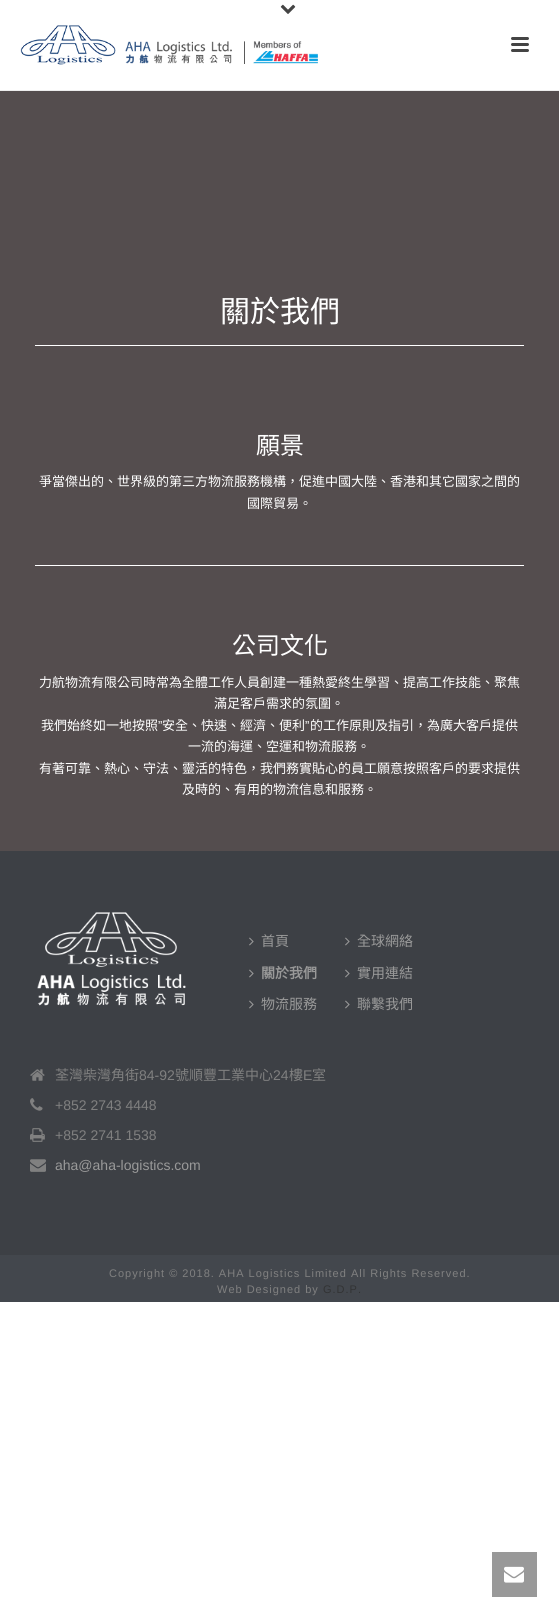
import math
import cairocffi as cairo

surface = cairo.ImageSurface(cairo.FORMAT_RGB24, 559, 1612)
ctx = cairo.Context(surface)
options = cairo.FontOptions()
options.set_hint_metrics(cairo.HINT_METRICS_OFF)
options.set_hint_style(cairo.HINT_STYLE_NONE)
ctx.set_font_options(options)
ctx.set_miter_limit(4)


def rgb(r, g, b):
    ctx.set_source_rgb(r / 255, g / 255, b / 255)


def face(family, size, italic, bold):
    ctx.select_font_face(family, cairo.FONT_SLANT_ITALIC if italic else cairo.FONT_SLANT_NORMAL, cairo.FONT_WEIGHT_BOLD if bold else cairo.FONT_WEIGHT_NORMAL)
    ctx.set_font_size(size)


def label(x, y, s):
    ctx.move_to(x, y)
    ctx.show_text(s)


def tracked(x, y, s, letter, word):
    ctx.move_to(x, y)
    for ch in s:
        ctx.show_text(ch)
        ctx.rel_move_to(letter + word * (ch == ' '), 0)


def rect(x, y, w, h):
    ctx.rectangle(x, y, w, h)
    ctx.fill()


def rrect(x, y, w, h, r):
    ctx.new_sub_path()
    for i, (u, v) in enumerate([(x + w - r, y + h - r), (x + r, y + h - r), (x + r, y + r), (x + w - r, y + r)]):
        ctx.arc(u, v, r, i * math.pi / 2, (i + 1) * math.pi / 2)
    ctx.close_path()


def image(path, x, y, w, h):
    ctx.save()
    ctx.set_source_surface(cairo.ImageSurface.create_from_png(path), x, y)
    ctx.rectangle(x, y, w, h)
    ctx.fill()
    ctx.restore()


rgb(255, 255, 255)
ctx.paint()
rgb(237, 237, 237)
rect(0, 90, 559, 1)
image('image0.png', 280, 4, 16, 10)
image('image1.png', 20, 25, 298, 40)
rgb(68, 68, 68)
rrect(511, 37, 18, 3, 1.5)
ctx.fill()
rrect(511, 43, 18, 3, 1.5)
ctx.fill()
rrect(511, 49, 18, 3, 1.5)
ctx.fill()
rgb(84, 77, 78)
rect(0, 91, 559, 760)
face('Noto Sans CJK TC', 30, 0, 0)
rgb(255, 255, 255)
label(220, 322, '關於我們')
rect(35, 345, 489, 1)
face('Noto Sans CJK TC', 24, 0, 0)
label(256, 454, '願景')
face('Noto Sans CJK TC', 13, 0, 0)
label(39, 486, '爭當傑出的、世界級的第三方物流服務機構，促進中國大陸、香港和其它國家之間的')
label(247, 508, '國際貿易。')
rect(35, 565, 489, 1)
face('Noto Sans CJK TC', 24, 0, 0)
label(232, 654, '公司文化')
face('Noto Sans CJK TC', 13, 0, 0)
label(39, 687, '力航物流有限公司時常為全體工作人員創建一種熱愛終生學習、提高工作技能、聚焦')
label(214, 708, '滿足客戶需求的氛圍。')
label(41, 730, '我們始終如一地按照')
face('Liberation Sans', 13, 0, 0)
label(158, 730, '”')
face('Noto Sans CJK TC', 13, 0, 0)
label(162, 730, '安全、快速、經濟、便利')
face('Liberation Sans', 13, 0, 0)
label(305, 730, '”')
face('Noto Sans CJK TC', 13, 0, 0)
label(310, 730, '的工作原則及指引，為廣大客戶提供')
label(188, 751, '一流的海運、空運和物流服務。')
label(39, 773, '有著可靠、熱心、守法、靈活的特色，我們務實貼心的員工願意按照客戶的要求提供')
label(182, 794, '及時的、有用的物流信息和服務。')
rgb(61, 64, 69)
rect(0, 851, 559, 404)
image('image2.png', 37, 912, 149, 94)
image('image3.png', 249, 937, 5, 9)
face('Noto Sans CJK TC', 14, 0, 0)
rgb(153, 153, 153)
label(261, 946, '首頁')
image('image4.png', 249, 969, 5, 9)
face('Noto Sans CJK TC', 14, 0, 1)
label(261, 978, '關於我們')
image('image3.png', 249, 1000, 5, 9)
face('Noto Sans CJK TC', 14, 0, 0)
label(261, 1009, '物流服務')
image('image3.png', 345, 937, 5, 9)
label(357, 946, '全球網絡')
image('image3.png', 345, 969, 5, 9)
label(357, 978, '實用連結')
image('image3.png', 345, 1000, 5, 9)
label(357, 1009, '聯繫我們')
image('image5.png', 30, 1069, 15, 12)
rgb(128, 128, 128)
label(55, 1080, '荃灣柴灣角街')
face('Liberation Sans', 14, 0, 0)
label(139, 1080, '84-92')
face('Noto Sans CJK TC', 14, 0, 0)
label(175, 1080, '號順豐工業中心')
face('Liberation Sans', 14, 0, 0)
label(273, 1080, '24')
face('Noto Sans CJK TC', 14, 0, 0)
label(289, 1080, '樓')
face('Liberation Sans', 14, 0, 0)
label(303, 1080, 'E')
face('Noto Sans CJK TC', 14, 0, 0)
label(312, 1080, '室')
image('image6.png', 30, 1098, 13, 13)
face('Liberation Sans', 14, 0, 0)
label(55, 1110, '+852 2743 4448')
image('image7.png', 30, 1128, 15, 14)
label(55, 1140, '+852 2741 1538')
image('image8.png', 30, 1159, 16, 13)
rgb(153, 153, 153)
label(55, 1170, 'aha@aha-logistics.com')
rgb(67, 71, 77)
rect(0, 1255, 559, 47)
face('Liberation Sans', 11, 0, 0)
rgb(128, 128, 128)
tracked(109, 1277, 'Copyright © 2018. AHA Logistics Limited All Rights Reserved.', 1, 0)
tracked(217, 1293, 'Web Designed by', 1, 0)
rgb(50, 51, 52)
tracked(323, 1293, 'G.D.P.', 1, 0)
rgb(153, 153, 153)
rect(492, 1552, 45, 45)
image('image9.png', 504, 1566, 20, 17)
surface.write_to_png('render.png')
